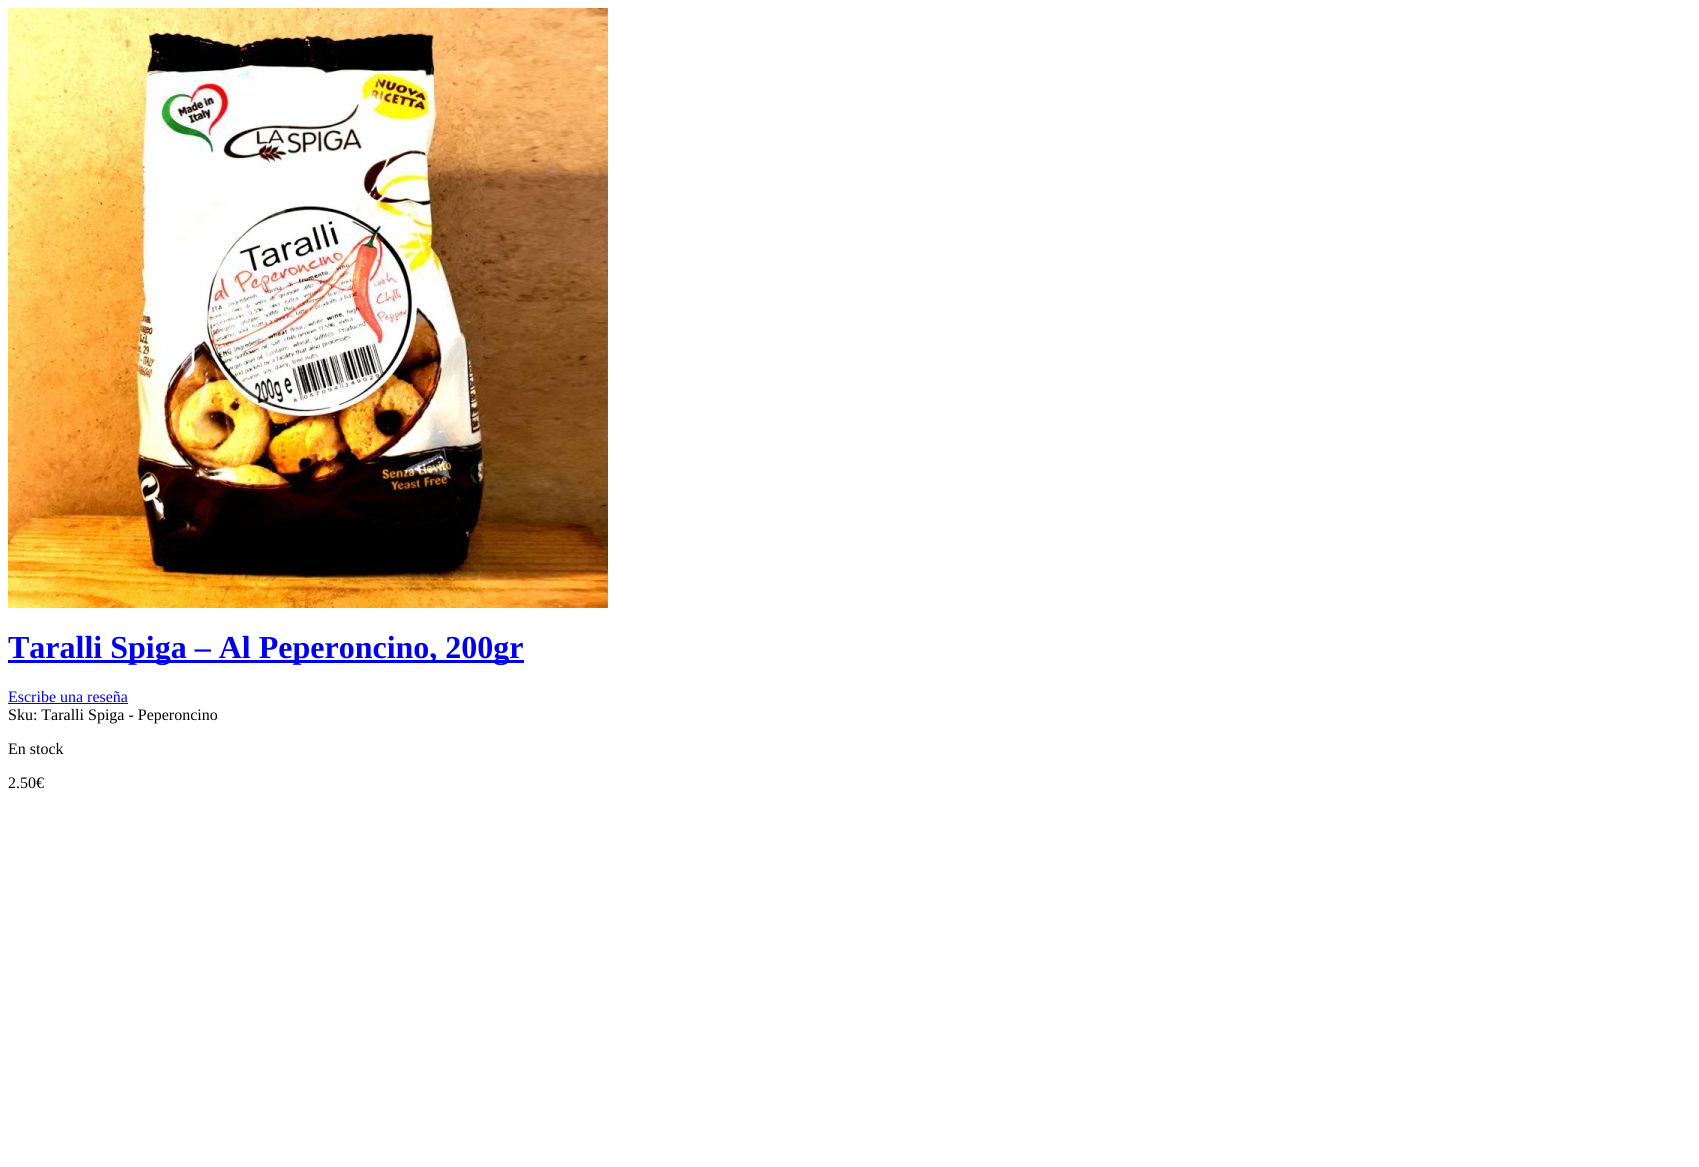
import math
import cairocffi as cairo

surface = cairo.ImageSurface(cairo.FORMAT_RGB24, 1699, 1167)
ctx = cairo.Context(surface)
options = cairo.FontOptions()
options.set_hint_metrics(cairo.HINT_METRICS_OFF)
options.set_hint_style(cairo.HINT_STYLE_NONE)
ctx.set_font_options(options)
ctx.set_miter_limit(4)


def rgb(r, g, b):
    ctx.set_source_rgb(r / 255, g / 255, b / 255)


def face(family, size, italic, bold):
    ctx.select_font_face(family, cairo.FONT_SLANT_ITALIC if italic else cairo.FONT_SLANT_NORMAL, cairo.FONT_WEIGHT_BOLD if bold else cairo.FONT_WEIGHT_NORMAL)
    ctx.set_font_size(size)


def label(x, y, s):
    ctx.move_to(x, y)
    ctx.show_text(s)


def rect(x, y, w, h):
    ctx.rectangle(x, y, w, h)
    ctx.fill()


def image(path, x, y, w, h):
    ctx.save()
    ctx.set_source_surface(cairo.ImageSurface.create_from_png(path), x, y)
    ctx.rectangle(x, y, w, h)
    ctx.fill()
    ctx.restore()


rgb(255, 255, 255)
ctx.paint()
image('image0.png', 8, 8, 600, 600)
rgb(0, 0, 238)
rect(8, 660, 516, 3)
face('Liberation Serif', 32, 0, 1)
label(8, 658, 'Taralli Spiga – Al Peperoncino, 200gr')
face('Liberation Serif', 16, 0, 0)
label(8, 702, 'Escribe una reseña')
rect(8, 703, 120, 1)
rgb(0, 0, 0)
label(8, 720, 'Sku: Taralli Spiga - Peperoncino')
label(8, 754, 'En stock')
label(8, 788, '2.50€')
surface.write_to_png('render.png')
